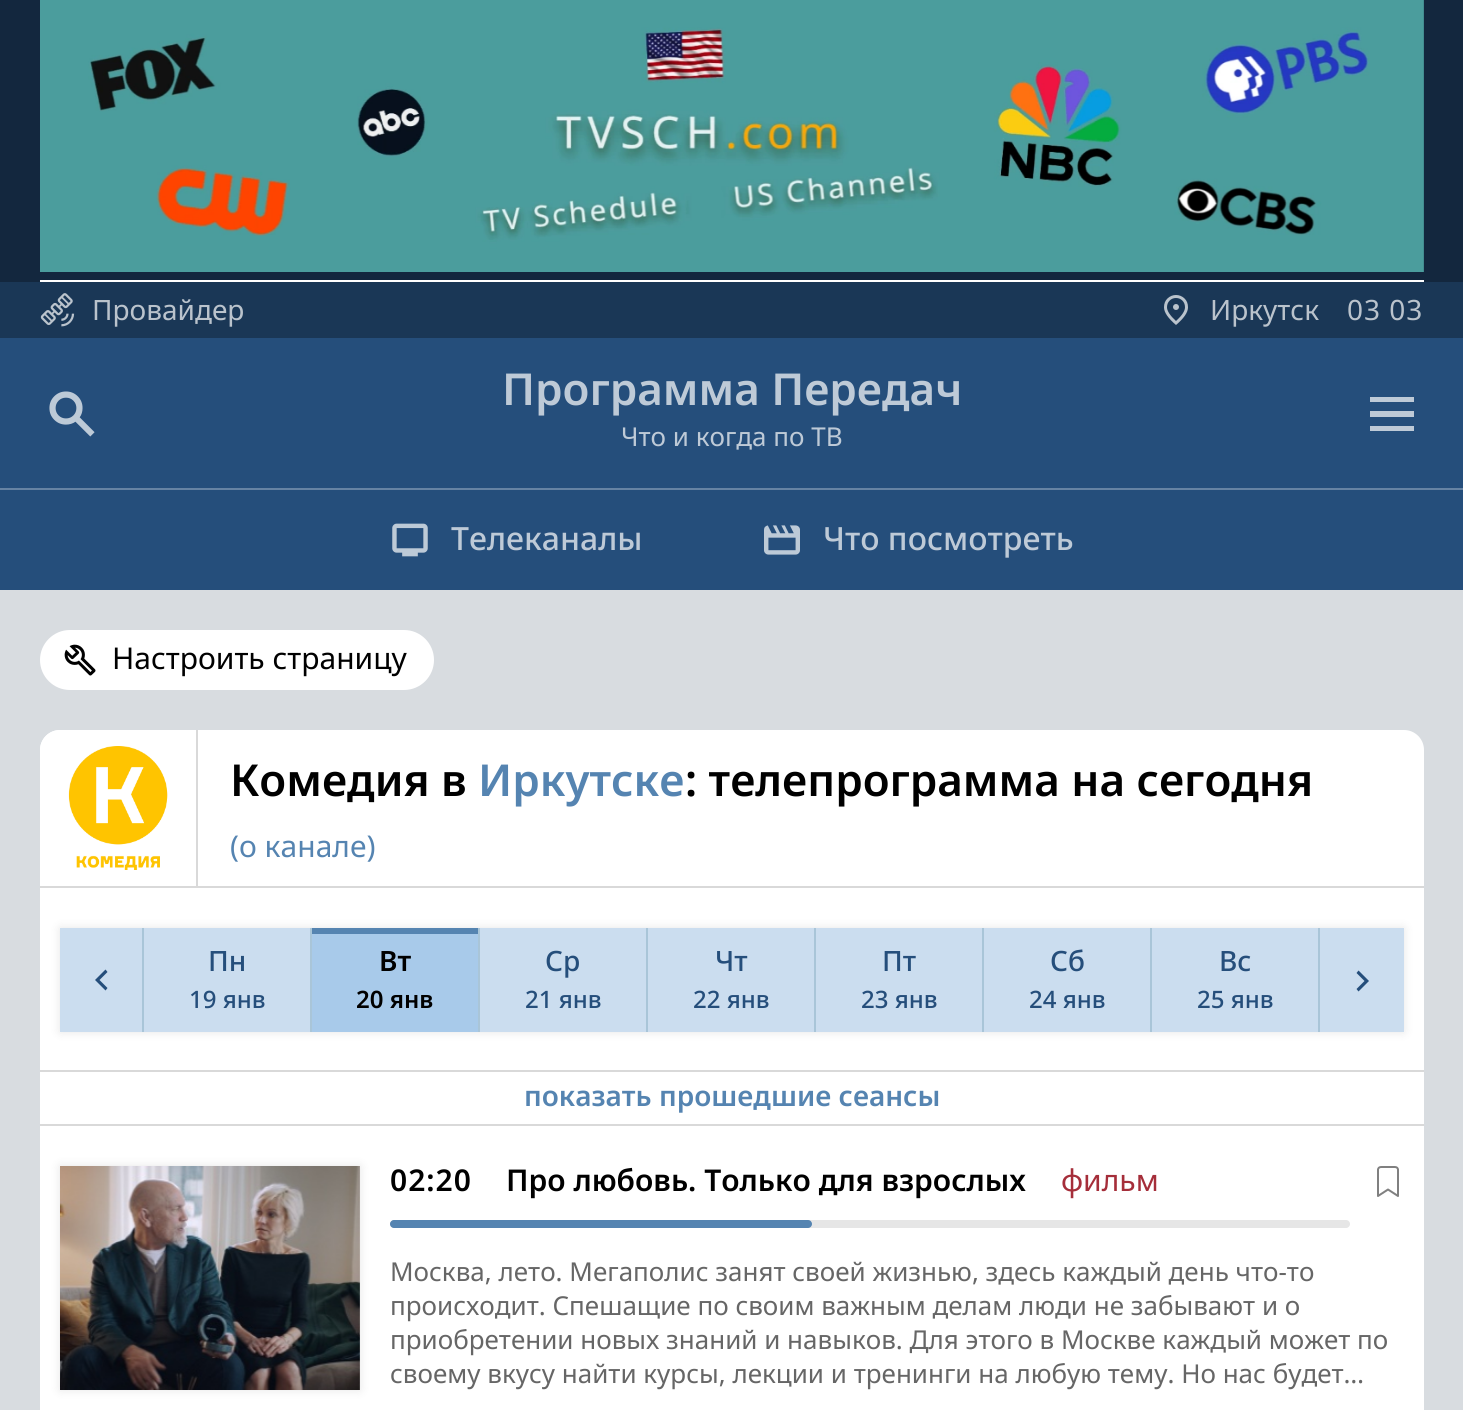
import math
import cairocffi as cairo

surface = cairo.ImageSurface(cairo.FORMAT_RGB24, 1463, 1410)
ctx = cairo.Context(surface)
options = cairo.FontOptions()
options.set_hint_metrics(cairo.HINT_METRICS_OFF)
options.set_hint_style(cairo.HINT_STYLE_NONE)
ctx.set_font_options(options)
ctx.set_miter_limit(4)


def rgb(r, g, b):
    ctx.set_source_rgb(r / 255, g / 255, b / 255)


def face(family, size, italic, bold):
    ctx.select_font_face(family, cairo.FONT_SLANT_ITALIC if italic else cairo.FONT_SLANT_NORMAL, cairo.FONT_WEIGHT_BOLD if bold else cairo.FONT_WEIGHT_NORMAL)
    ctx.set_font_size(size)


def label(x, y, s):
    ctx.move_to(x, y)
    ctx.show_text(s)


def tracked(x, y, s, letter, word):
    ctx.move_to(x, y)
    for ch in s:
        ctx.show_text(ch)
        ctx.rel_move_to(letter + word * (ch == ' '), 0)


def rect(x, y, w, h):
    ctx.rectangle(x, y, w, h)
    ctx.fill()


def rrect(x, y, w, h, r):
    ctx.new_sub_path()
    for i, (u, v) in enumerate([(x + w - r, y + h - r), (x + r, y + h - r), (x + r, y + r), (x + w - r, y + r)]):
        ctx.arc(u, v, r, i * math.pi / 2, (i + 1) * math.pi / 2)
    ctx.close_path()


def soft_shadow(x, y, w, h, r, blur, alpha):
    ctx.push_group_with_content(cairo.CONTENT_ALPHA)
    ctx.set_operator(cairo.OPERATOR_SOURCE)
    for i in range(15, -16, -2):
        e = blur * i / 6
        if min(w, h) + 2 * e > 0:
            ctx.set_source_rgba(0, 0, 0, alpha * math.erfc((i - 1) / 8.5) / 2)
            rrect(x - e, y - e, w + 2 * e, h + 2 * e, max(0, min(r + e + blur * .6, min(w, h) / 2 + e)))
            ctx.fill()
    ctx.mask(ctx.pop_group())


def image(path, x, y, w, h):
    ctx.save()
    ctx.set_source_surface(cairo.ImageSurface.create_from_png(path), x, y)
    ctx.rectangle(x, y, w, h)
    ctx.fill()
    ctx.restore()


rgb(216, 220, 224)
ctx.paint()
rgb(37, 78, 123)
rect(0, 338, 1463, 252)
rgb(19, 39, 62)
rect(0, 0, 1463, 282)
image('image0.png', 40, 0, 1384, 272)
rgb(255, 255, 255)
rect(40, 280, 1384, 2)
rgb(26, 55, 86)
rect(0, 282, 1463, 56)
image('image1.png', 40, 293, 35, 34)
face('Noto Sans', 28, 0, 0)
rgb(186, 195, 204)
label(92, 320, 'Провайдер')
image('image2.png', 1164, 295, 24, 30)
label(1210, 320, 'Иркутск')
tracked(1347, 320, '03 03', 1, 0)
image('image3.png', 49, 391, 46, 46)
face('Noto Sans SemiBold', 44, 0, 0)
rgb(190, 202, 215)
label(502, 405, 'Программа Передач')
face('Noto Sans', 26, 0, 0)
label(621, 446, 'Что и когда по ТВ')
ctx.new_path()
ctx.move_to(1370, 402)
ctx.line_to(1370, 397)
ctx.line_to(1414, 397)
ctx.line_to(1414, 402)
ctx.close_path()
ctx.move_to(1370, 431)
ctx.line_to(1370, 426)
ctx.line_to(1414, 426)
ctx.line_to(1414, 431)
ctx.close_path()
ctx.move_to(1370, 417)
ctx.line_to(1370, 411)
ctx.line_to(1414, 411)
ctx.line_to(1414, 417)
ctx.close_path()
ctx.fill()
image('image4.png', 392, 523, 36, 34)
face('Noto Sans Medium', 32, 0, 0)
label(451, 550, 'Телеканалы')
image('image5.png', 764, 525, 36, 30)
label(823, 550, 'Что посмотреть')
rgb(102, 131, 163)
rect(0, 488, 1463, 2)
rgb(255, 255, 255)
rrect(40, 630, 394, 60, 30)
ctx.fill()
image('image6.png', 64, 644, 32, 32)
face('Noto Sans', 30, 0, 0)
rgb(0, 0, 0)
label(112, 669, 'Настроить страницу')
rgb(255, 255, 255)
rrect(40, 730, 1384, 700, 20)
ctx.fill()
rgb(217, 217, 217)
rect(40, 886, 1384, 2)
rgb(255, 255, 255)
ctx.new_path()
ctx.move_to(60, 730)
ctx.line_to(196, 730)
ctx.line_to(196, 886)
ctx.line_to(40, 886)
ctx.line_to(40, 750)
ctx.curve_to(40, 739, 49, 730, 60, 730)
ctx.close_path()
ctx.fill()
image('image7.png', 68, 746, 100, 124)
rgb(217, 217, 217)
rect(196, 730, 2, 156)
face('Noto Sans SemiBold', 44, 0, 0)
rgb(0, 0, 0)
label(230, 796, 'Комедия в')
rgb(85, 132, 177)
label(478, 796, 'Иркутске')
rgb(0, 0, 0)
label(685, 796, ': телепрограмма на сегодня')
face('Noto Sans', 30, 0, 0)
rgb(85, 132, 177)
label(230, 857, '(о канале)')
rgb(0, 0, 0)
soft_shadow(60, 928, 1344, 104, 0, 5, 0.1)
rgb(203, 221, 239)
rect(60, 928, 82, 104)
rgb(169, 197, 216)
rect(142, 928, 2, 104)
rgb(37, 78, 123)
ctx.new_path()
ctx.move_to(105.5, 990.5)
ctx.line_to(95, 980)
ctx.line_to(105.5, 969.5)
ctx.line_to(107.5, 972)
ctx.line_to(99.5, 980)
ctx.line_to(107.5, 988)
ctx.close_path()
ctx.fill()
rgb(203, 221, 239)
rect(144, 928, 166, 104)
rgb(169, 197, 216)
rect(310, 928, 2, 104)
face('Noto Sans Medium', 28, 0, 0)
rgb(37, 78, 123)
label(208, 971, 'Пн')
face('Noto Sans Medium', 24, 0, 0)
label(189, 1008, '19 янв')
rgb(168, 202, 234)
rect(312, 934, 166, 98)
rgb(169, 197, 216)
rect(478, 928, 2, 104)
rgb(85, 132, 177)
rect(312, 928, 166, 6)
face('Noto Sans SemiBold', 28, 0, 0)
rgb(0, 0, 0)
label(379, 971, 'Вт')
face('Noto Sans SemiBold', 24, 0, 0)
label(356, 1008, '20 янв')
rgb(203, 221, 239)
rect(480, 928, 166, 104)
rgb(169, 197, 216)
rect(646, 928, 2, 104)
face('Noto Sans Medium', 28, 0, 0)
rgb(37, 78, 123)
label(545, 971, 'Ср')
face('Noto Sans Medium', 24, 0, 0)
label(525, 1008, '21 янв')
rgb(203, 221, 239)
rect(648, 928, 166, 104)
rgb(169, 197, 216)
rect(814, 928, 2, 104)
face('Noto Sans Medium', 28, 0, 0)
rgb(37, 78, 123)
label(715, 971, 'Чт')
face('Noto Sans Medium', 24, 0, 0)
label(693, 1008, '22 янв')
rgb(203, 221, 239)
rect(816, 928, 166, 104)
rgb(169, 197, 216)
rect(982, 928, 2, 104)
face('Noto Sans Medium', 28, 0, 0)
rgb(37, 78, 123)
label(882, 971, 'Пт')
face('Noto Sans Medium', 24, 0, 0)
label(861, 1008, '23 янв')
rgb(203, 221, 239)
rect(984, 928, 166, 104)
rgb(169, 197, 216)
rect(1150, 928, 2, 104)
face('Noto Sans Medium', 28, 0, 0)
rgb(37, 78, 123)
label(1050, 971, 'Сб')
face('Noto Sans Medium', 24, 0, 0)
label(1029, 1008, '24 янв')
rgb(203, 221, 239)
rect(1152, 928, 166, 104)
rgb(169, 197, 216)
rect(1318, 928, 2, 104)
face('Noto Sans Medium', 28, 0, 0)
rgb(37, 78, 123)
label(1219, 971, 'Вс')
face('Noto Sans Medium', 24, 0, 0)
label(1197, 1008, '25 янв')
rgb(203, 221, 239)
rect(1320, 928, 84, 104)
rgb(37, 78, 123)
ctx.new_path()
ctx.move_to(1358.5, 970.5)
ctx.line_to(1369, 981)
ctx.line_to(1358.5, 991.5)
ctx.line_to(1356.5, 989)
ctx.line_to(1364.5, 981)
ctx.line_to(1356.5, 973)
ctx.close_path()
ctx.fill()
rgb(217, 217, 217)
rect(40, 1070, 1384, 2)
rect(40, 1124, 1384, 2)
face('Noto Sans SemiBold', 28, 0, 0)
rgb(85, 132, 177)
label(524, 1106, 'показать прошедшие сеансы')
rgb(0, 0, 0)
soft_shadow(60, 1166, 300, 224, 0, 5, 0.1)
image('image8.png', 60, 1166, 300, 224)
face('Noto Sans SemiBold', 30, 0, 0)
rgb(0, 0, 0)
tracked(390, 1191, '02:20', 1, 0)
label(506, 1191, 'Про любовь. Только для взрослых')
face('Noto Sans', 30, 0, 0)
rgb(165, 46, 58)
label(1061, 1191, 'фильм')
ctx.new_path()
ctx.move_to(1378, 1196)
ctx.line_to(1378, 1169.5)
ctx.curve_to(1378.5, 1166.5, 1381.5, 1167, 1383.5, 1167)
ctx.line_to(1392.5, 1167)
ctx.curve_to(1394.5, 1167, 1397.5, 1166.5, 1398, 1169.5)
ctx.line_to(1398, 1196)
ctx.line_to(1388, 1189.5)
ctx.close_path()
rgb(128, 128, 128)
ctx.set_line_cap(cairo.LINE_CAP_ROUND)
ctx.set_line_join(cairo.LINE_JOIN_ROUND)
ctx.stroke()
rgb(230, 230, 230)
rrect(390, 1220, 960, 8, 4)
ctx.fill()
rgb(85, 132, 177)
rrect(390, 1220, 422, 8, 4)
ctx.fill()
face('Noto Sans', 26, 0, 0)
rgb(102, 102, 102)
label(390, 1281, 'Москва, лето. Мегаполис занят своей жизнью, здесь каждый день что-то')
label(390, 1315, 'происходит. Спешащие по своим важным делам люди не забывают и о')
label(390, 1349, 'приобретении новых знаний и навыков. Для этого в Москве каждый может по')
label(390, 1383, 'своему вкусу найти курсы, лекции и тренинги на любую тему. Но нас будет…')
surface.write_to_png('render.png')
